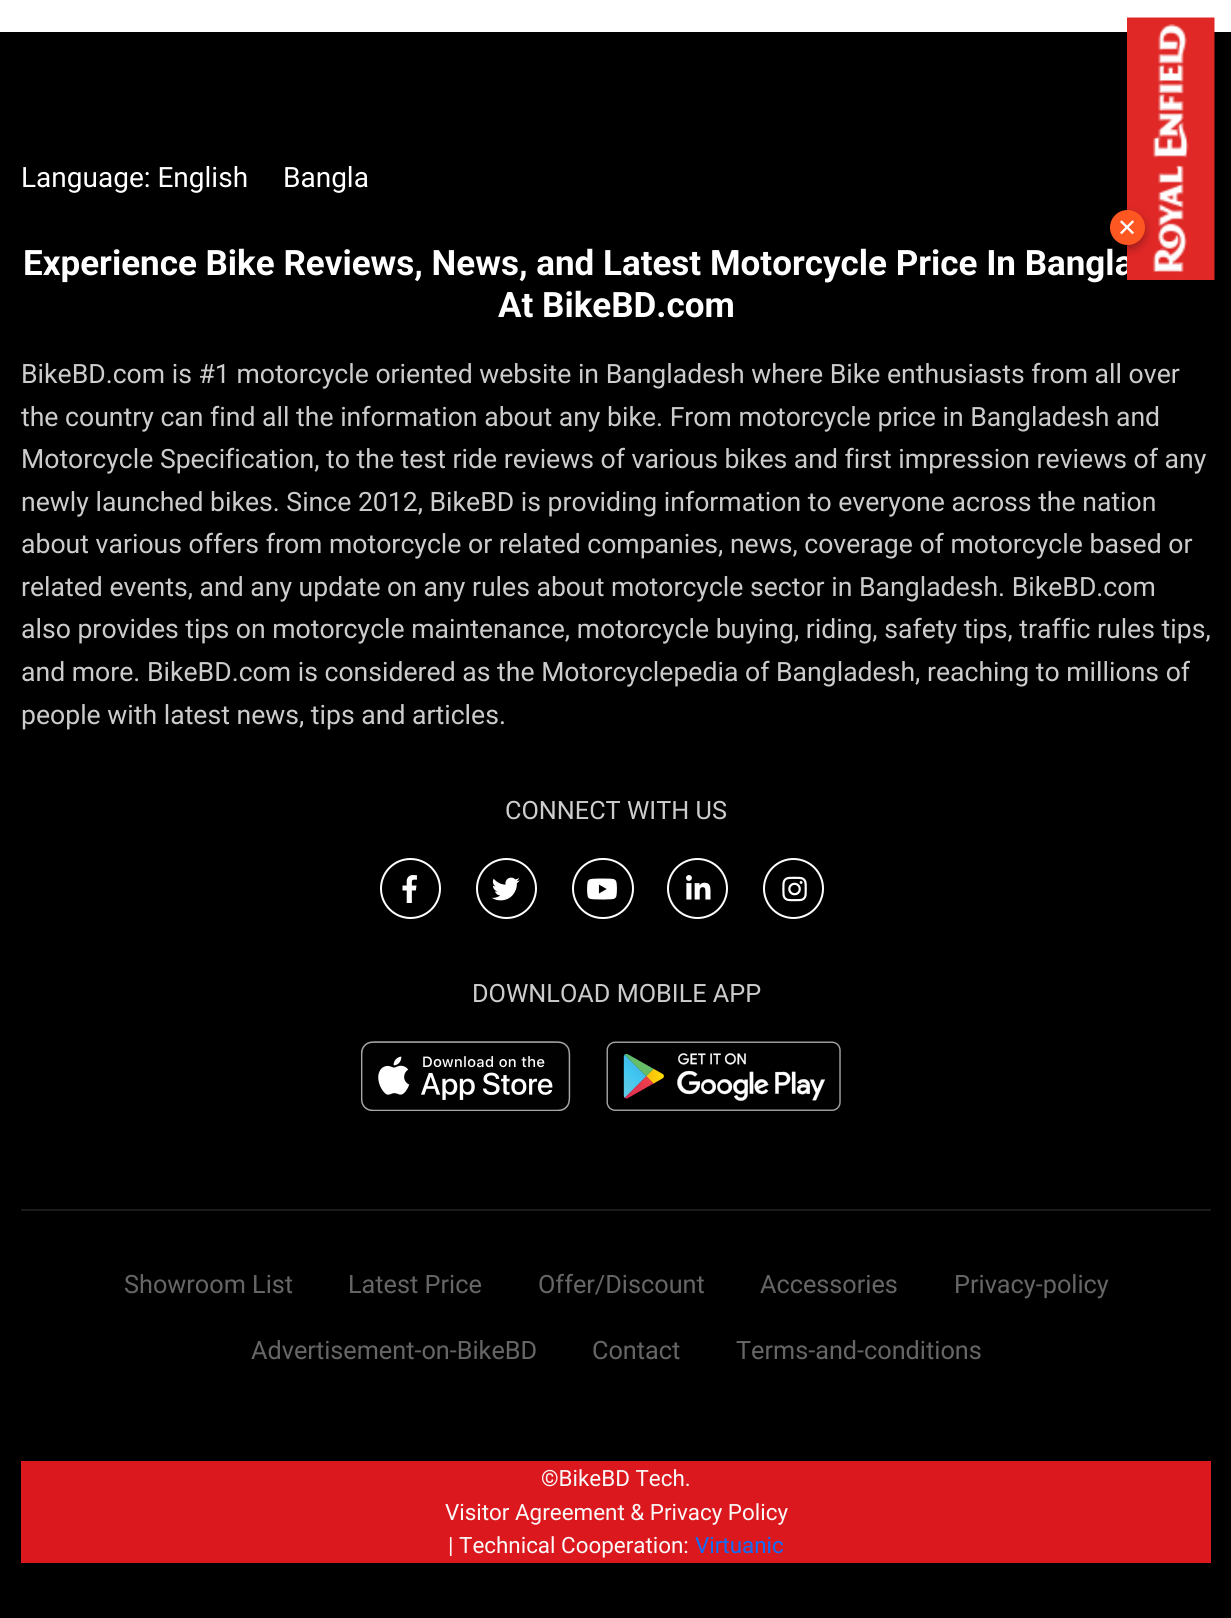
import math
import cairocffi as cairo

surface = cairo.ImageSurface(cairo.FORMAT_RGB24, 1231, 1618)
ctx = cairo.Context(surface)
options = cairo.FontOptions()
options.set_hint_metrics(cairo.HINT_METRICS_OFF)
options.set_hint_style(cairo.HINT_STYLE_NONE)
ctx.set_font_options(options)
ctx.set_miter_limit(4)


def rgb(r, g, b):
    ctx.set_source_rgb(r / 255, g / 255, b / 255)


def face(family, size, italic, bold):
    ctx.select_font_face(family, cairo.FONT_SLANT_ITALIC if italic else cairo.FONT_SLANT_NORMAL, cairo.FONT_WEIGHT_BOLD if bold else cairo.FONT_WEIGHT_NORMAL)
    ctx.set_font_size(size)


def label(x, y, s):
    ctx.move_to(x, y)
    ctx.show_text(s)


def rect(x, y, w, h):
    ctx.rectangle(x, y, w, h)
    ctx.fill()


def rrect(x, y, w, h, r):
    ctx.new_sub_path()
    for i, (u, v) in enumerate([(x + w - r, y + h - r), (x + r, y + h - r), (x + r, y + r), (x + w - r, y + r)]):
        ctx.arc(u, v, r, i * math.pi / 2, (i + 1) * math.pi / 2)
    ctx.close_path()


def soft_shadow(x, y, w, h, r, blur, alpha):
    ctx.push_group_with_content(cairo.CONTENT_ALPHA)
    ctx.set_operator(cairo.OPERATOR_SOURCE)
    for i in range(15, -16, -2):
        e = blur * i / 6
        if min(w, h) + 2 * e > 0:
            ctx.set_source_rgba(0, 0, 0, alpha * math.erfc((i - 1) / 8.5) / 2)
            rrect(x - e, y - e, w + 2 * e, h + 2 * e, max(0, min(r + e + blur * .6, min(w, h) / 2 + e)))
            ctx.fill()
    ctx.mask(ctx.pop_group())


def image(path, x, y, w, h):
    ctx.save()
    ctx.set_source_surface(cairo.ImageSurface.create_from_png(path), x, y)
    ctx.rectangle(x, y, w, h)
    ctx.fill()
    ctx.restore()


rgb(255, 255, 255)
ctx.paint()
rgb(0, 0, 0)
rect(0, 32, 1231, 1586)
face('Roboto', 28, 0, 0)
rgb(255, 255, 255)
label(21, 187, 'Language: English')
label(283, 187, 'Bangla')
face('Roboto', 35, 0, 1)
label(23, 275, 'Experience Bike Reviews, News, and Latest Motorcycle Price In Bangla')
label(498, 317, 'At BikeBD.com')
face('Roboto', 26.6, 0, 0)
rgb(204, 204, 204)
label(21, 383, 'BikeBD.com is #1 motorcycle oriented website in Bangladesh where Bike enthusiasts from all over')
label(21, 426, 'the country can find all the information about any bike. From motorcycle price in Bangladesh and')
label(21, 468, 'Motorcycle Specification, to the test ride reviews of various bikes and first impression reviews of any')
label(21, 511, 'newly launched bikes. Since 2012, BikeBD is providing information to everyone across the nation')
label(21, 553, 'about various offers from motorcycle or related companies, news, coverage of motorcycle based or')
label(21, 596, 'related events, and any update on any rules about motorcycle sector in Bangladesh. BikeBD.com')
label(21, 638, 'also provides tips on motorcycle maintenance, motorcycle buying, riding, safety tips, traffic rules tips,')
label(21, 681, 'and more. BikeBD.com is considered as the Motorcyclepedia of Bangladesh, reaching to millions of')
label(21, 724, 'people with latest news, tips and articles.')
face('Roboto', 25.25, 0, 0)
label(505, 819, 'CONNECT WITH US')
ctx.new_path()
ctx.arc(410.5, 888.5, 29.5, 0, 2 * math.pi)
rgb(255, 255, 255)
ctx.stroke()
image('image0.png', 402, 875, 15, 28)
ctx.arc(506.5, 888.5, 29.5, 0, 2 * math.pi)
ctx.stroke()
image('image1.png', 492, 877, 28, 24)
rrect(573, 859, 60, 59, 29.5)
ctx.stroke()
image('image2.png', 587, 878, 30, 22)
ctx.arc(697.5, 888.5, 29.5, 0, 2 * math.pi)
ctx.stroke()
image('image3.png', 686, 875, 25, 25)
ctx.arc(793.5, 888.5, 29.5, 0, 2 * math.pi)
ctx.stroke()
image('image4.png', 782, 876, 25, 26)
rgb(204, 204, 204)
label(472, 1002, 'DOWNLOAD MOBILE APP')
image('image5.png', 361, 1041, 210, 70)
image('image6.png', 606, 1041, 235, 70)
rgb(26, 26, 26)
rect(21, 1209, 1190, 2)
rgb(102, 102, 102)
label(124, 1293, 'Showroom List')
label(348, 1293, 'Latest Price')
label(538, 1293, 'Offer/Discount')
label(760, 1293, 'Accessories')
label(954, 1293, 'Privacy-policy')
label(251, 1359, 'Advertisement-on-BikeBD')
label(592, 1359, 'Contact')
label(736, 1359, 'Terms-and-conditions')
rgb(220, 24, 31)
rect(21, 1461, 1190, 102)
face('Roboto', 22.4, 0, 0)
rgb(250, 248, 248)
label(541, 1486, '©BikeBD Tech.')
label(445, 1520, 'Visitor Agreement & Privacy Policy')
label(448, 1553, '| Technical Cooperation:')
rgb(13, 110, 253)
label(695, 1553, 'Virtuanic')
image('image7.png', 1127, 17, 88, 263)
rgb(0, 0, 0)
soft_shadow(1110, 214, 35, 35, 17.5, 4.5, 0.3)
rgb(255, 87, 34)
ctx.arc(1127.5, 227.5, 17.5, 0, 2 * math.pi)
ctx.fill()
face('DejaVu Sans', 24, 0, 0)
rgb(255, 255, 255)
label(1117, 236, '✕')
surface.write_to_png('render.png')
